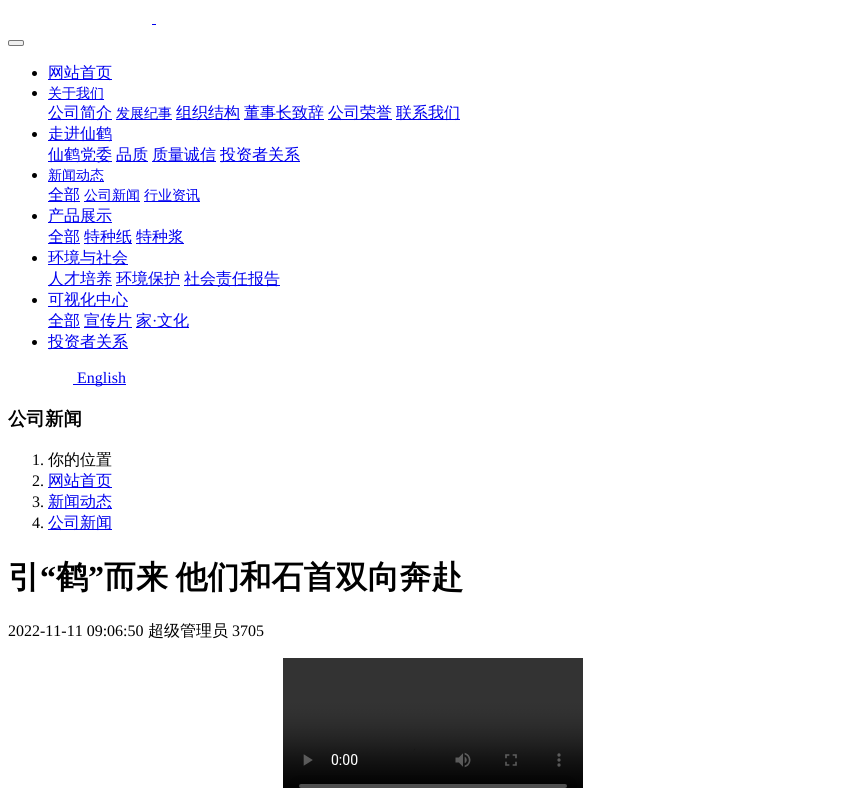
import math
import cairocffi as cairo

surface = cairo.ImageSurface(cairo.FORMAT_RGB24, 865, 788)
ctx = cairo.Context(surface)
options = cairo.FontOptions()
options.set_hint_metrics(cairo.HINT_METRICS_OFF)
options.set_hint_style(cairo.HINT_STYLE_NONE)
ctx.set_font_options(options)
ctx.set_miter_limit(4)


def rgb(r, g, b):
    ctx.set_source_rgb(r / 255, g / 255, b / 255)


def face(family, size, italic, bold):
    ctx.select_font_face(family, cairo.FONT_SLANT_ITALIC if italic else cairo.FONT_SLANT_NORMAL, cairo.FONT_WEIGHT_BOLD if bold else cairo.FONT_WEIGHT_NORMAL)
    ctx.set_font_size(size)


def label(x, y, s):
    ctx.move_to(x, y)
    ctx.show_text(s)


def tracked(x, y, s, letter, word):
    ctx.move_to(x, y)
    for ch in s:
        ctx.show_text(ch)
        ctx.rel_move_to(letter + word * (ch == ' '), 0)


def rect(x, y, w, h):
    ctx.rectangle(x, y, w, h)
    ctx.fill()


def rrect(x, y, w, h, r):
    ctx.new_sub_path()
    for i, (u, v) in enumerate([(x + w - r, y + h - r), (x + r, y + h - r), (x + r, y + r), (x + w - r, y + r)]):
        ctx.arc(u, v, r, i * math.pi / 2, (i + 1) * math.pi / 2)
    ctx.close_path()


def image(path, x, y, w, h):
    ctx.save()
    ctx.set_source_surface(cairo.ImageSurface.create_from_png(path), x, y)
    ctx.rectangle(x, y, w, h)
    ctx.fill()
    ctx.restore()


rgb(255, 255, 255)
ctx.paint()
rgb(0, 0, 238)
rect(152, 24, 4, 1)
rgb(239, 239, 239)
rrect(8.5, 40.5, 15, 5, 1.5)
ctx.fill_preserve()
rgb(118, 118, 118)
ctx.set_line_width(1)
ctx.stroke()
rgb(0, 0, 0)
ctx.arc(34.5, 73.5, 2.5, 0, 2 * math.pi)
ctx.fill()
rgb(0, 0, 238)
rect(48, 79, 64, 1)
face('WenQuanYi Zen Hei Medium', 16, 0, 0)
label(48, 78, '网站首页')
rgb(0, 0, 0)
ctx.new_path()
ctx.arc(34.5, 93.5, 2.5, 0, 2 * math.pi)
ctx.fill()
rgb(0, 0, 238)
rect(48, 99, 56, 1)
face('WenQuanYi Zen Hei Medium', 14, 0, 0)
label(48, 98, '关于我们')
rect(48, 119, 64, 1)
face('WenQuanYi Zen Hei Medium', 16, 0, 0)
label(48, 118, '公司简介')
rect(116, 119, 56, 1)
face('WenQuanYi Zen Hei Medium', 14, 0, 0)
label(116, 118, '发展纪事')
rect(176, 119, 64, 1)
face('WenQuanYi Zen Hei Medium', 16, 0, 0)
label(176, 118, '组织结构')
rect(244, 119, 80, 1)
label(244, 118, '董事长致辞')
rect(328, 119, 64, 1)
label(328, 118, '公司荣誉')
rect(396, 119, 64, 1)
label(396, 118, '联系我们')
rgb(0, 0, 0)
ctx.new_path()
ctx.arc(34.5, 134.5, 2.5, 0, 2 * math.pi)
ctx.fill()
rgb(0, 0, 238)
rect(48, 140, 64, 1)
label(48, 139, '走进仙鹤')
rect(48, 161, 64, 1)
label(48, 160, '仙鹤党委')
rect(116, 161, 32, 1)
label(116, 160, '品质')
rect(152, 161, 64, 1)
label(152, 160, '质量诚信')
rect(220, 161, 80, 1)
label(220, 160, '投资者关系')
rgb(0, 0, 0)
ctx.new_path()
ctx.arc(34.5, 175.5, 2.5, 0, 2 * math.pi)
ctx.fill()
rgb(0, 0, 238)
rect(48, 181, 56, 1)
face('WenQuanYi Zen Hei Medium', 14, 0, 0)
label(48, 180, '新闻动态')
rect(48, 201, 32, 1)
face('WenQuanYi Zen Hei Medium', 16, 0, 0)
label(48, 200, '全部')
rect(84, 201, 56, 1)
face('WenQuanYi Zen Hei Medium', 14, 0, 0)
label(84, 200, '公司新闻')
rect(144, 201, 56, 1)
label(144, 200, '行业资讯')
rgb(0, 0, 0)
ctx.new_path()
ctx.arc(34.5, 216.5, 2.5, 0, 2 * math.pi)
ctx.fill()
rgb(0, 0, 238)
rect(48, 222, 64, 1)
face('WenQuanYi Zen Hei Medium', 16, 0, 0)
label(48, 221, '产品展示')
rect(48, 243, 32, 1)
label(48, 242, '全部')
rect(84, 243, 48, 1)
label(84, 242, '特种纸')
rect(136, 243, 48, 1)
label(136, 242, '特种浆')
rgb(0, 0, 0)
ctx.new_path()
ctx.arc(34.5, 258.5, 2.5, 0, 2 * math.pi)
ctx.fill()
rgb(0, 0, 238)
rect(48, 264, 80, 1)
label(48, 263, '环境与社会')
rect(48, 285, 64, 1)
label(48, 284, '人才培养')
rect(116, 285, 64, 1)
label(116, 284, '环境保护')
rect(184, 285, 96, 1)
label(184, 284, '社会责任报告')
rgb(0, 0, 0)
ctx.new_path()
ctx.arc(34.5, 300.5, 2.5, 0, 2 * math.pi)
ctx.fill()
rgb(0, 0, 238)
rect(48, 306, 80, 1)
label(48, 305, '可视化中心')
rect(48, 327, 32, 1)
label(48, 326, '全部')
rect(84, 327, 48, 1)
label(84, 326, '宣传片')
rect(136, 327, 53, 1)
label(136, 326, '家')
face('Liberation Serif', 16, 0, 0)
label(152, 326, '·')
face('WenQuanYi Zen Hei Medium', 16, 0, 0)
label(157, 326, '文化')
rgb(0, 0, 0)
ctx.new_path()
ctx.arc(34.5, 342.5, 2.5, 0, 2 * math.pi)
ctx.fill()
rgb(0, 0, 238)
rect(48, 348, 80, 1)
label(48, 347, '投资者关系')
rect(73, 384, 53, 1)
face('Liberation Serif', 16, 0, 0)
label(77, 383, 'English')
face('WenQuanYi Zen Hei', 18.5, 0, 1)
rgb(0, 0, 0)
label(8, 425, '公司新闻')
face('Liberation Serif', 16, 0, 0)
label(32, 465, '1.')
face('WenQuanYi Zen Hei Medium', 16, 0, 0)
label(48, 465, '你的位置')
face('Liberation Serif', 16, 0, 0)
label(32, 486, '2.')
rgb(0, 0, 238)
rect(48, 487, 64, 1)
face('WenQuanYi Zen Hei Medium', 16, 0, 0)
label(48, 486, '网站首页')
face('Liberation Serif', 16, 0, 0)
rgb(0, 0, 0)
label(32, 507, '3.')
rgb(0, 0, 238)
rect(48, 508, 64, 1)
face('WenQuanYi Zen Hei Medium', 16, 0, 0)
label(48, 507, '新闻动态')
face('Liberation Serif', 16, 0, 0)
rgb(0, 0, 0)
label(32, 528, '4.')
rgb(0, 0, 238)
rect(48, 529, 64, 1)
face('WenQuanYi Zen Hei Medium', 16, 0, 0)
label(48, 528, '公司新闻')
face('WenQuanYi Zen Hei', 32, 0, 1)
rgb(0, 0, 0)
label(8, 588, '引')
face('Liberation Serif', 32, 0, 1)
label(40, 588, '“')
face('WenQuanYi Zen Hei', 32, 0, 1)
label(56, 588, '鹤')
face('Liberation Serif', 32, 0, 1)
label(88, 588, '”')
face('WenQuanYi Zen Hei', 32, 0, 1)
tracked(104, 588, '而来 他们和石首双向奔赴', 0, -2)
face('Liberation Serif', 16, 0, 0)
label(8, 636, '2022-11-11 09:06:50')
face('WenQuanYi Zen Hei Medium', 16, 0, 0)
label(148, 636, '超级管理员')
face('Liberation Serif', 16, 0, 0)
label(232, 636, '3705')
image('image0.png', 283, 658, 300, 130)
surface.write_to_png('render.png')
